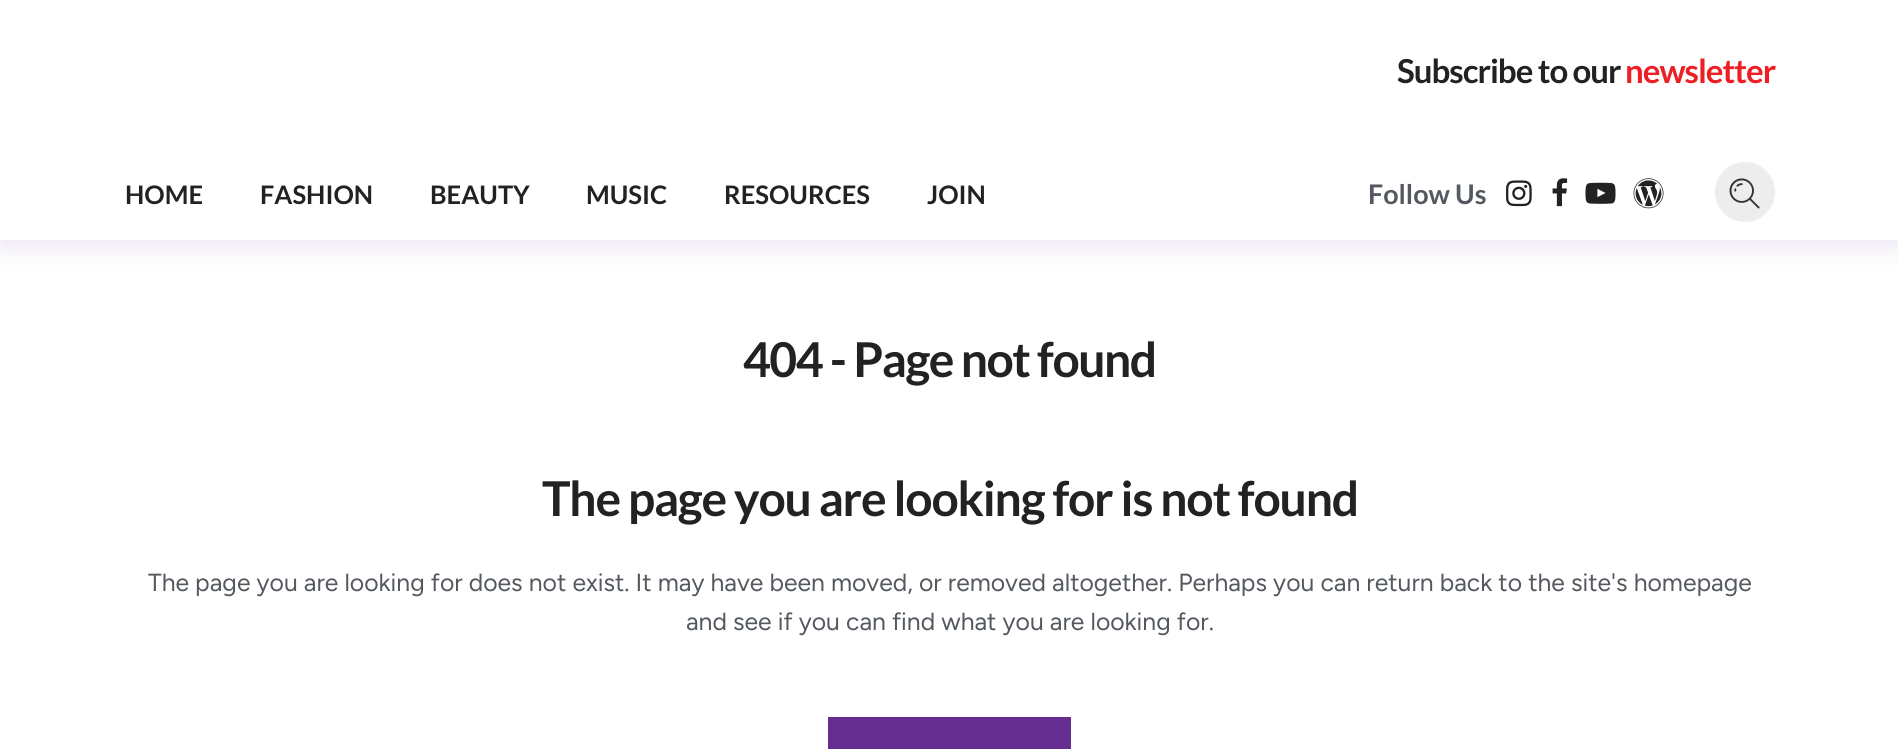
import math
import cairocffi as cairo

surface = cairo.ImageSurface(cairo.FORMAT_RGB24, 1898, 749)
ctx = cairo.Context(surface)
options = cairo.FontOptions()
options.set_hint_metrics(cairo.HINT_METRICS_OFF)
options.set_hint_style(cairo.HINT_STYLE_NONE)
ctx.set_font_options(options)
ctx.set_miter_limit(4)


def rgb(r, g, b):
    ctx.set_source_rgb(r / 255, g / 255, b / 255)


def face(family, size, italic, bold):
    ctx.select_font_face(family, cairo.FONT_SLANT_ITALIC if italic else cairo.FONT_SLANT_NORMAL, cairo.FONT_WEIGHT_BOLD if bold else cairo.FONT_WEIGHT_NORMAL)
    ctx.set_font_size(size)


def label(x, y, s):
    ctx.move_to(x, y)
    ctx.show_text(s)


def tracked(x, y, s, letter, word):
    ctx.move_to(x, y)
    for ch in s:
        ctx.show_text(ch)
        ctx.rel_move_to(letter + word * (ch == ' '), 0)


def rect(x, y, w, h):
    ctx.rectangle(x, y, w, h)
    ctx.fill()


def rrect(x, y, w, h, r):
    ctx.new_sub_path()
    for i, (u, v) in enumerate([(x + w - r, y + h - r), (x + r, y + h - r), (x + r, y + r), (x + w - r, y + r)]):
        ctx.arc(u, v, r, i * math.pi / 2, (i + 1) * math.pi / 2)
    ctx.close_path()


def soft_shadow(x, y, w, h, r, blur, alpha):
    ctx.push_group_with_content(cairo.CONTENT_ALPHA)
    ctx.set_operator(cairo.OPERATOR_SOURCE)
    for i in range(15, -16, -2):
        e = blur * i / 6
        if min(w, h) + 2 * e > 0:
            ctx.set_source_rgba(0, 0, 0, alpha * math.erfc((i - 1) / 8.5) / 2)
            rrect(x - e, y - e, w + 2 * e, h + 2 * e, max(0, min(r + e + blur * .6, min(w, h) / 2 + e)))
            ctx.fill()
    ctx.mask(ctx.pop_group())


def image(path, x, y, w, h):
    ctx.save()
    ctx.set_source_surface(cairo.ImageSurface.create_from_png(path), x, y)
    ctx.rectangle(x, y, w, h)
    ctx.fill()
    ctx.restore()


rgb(255, 255, 255)
ctx.paint()
rgb(102, 45, 145)
soft_shadow(0, 6, 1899, 240, 0, 12, 0.14)
rgb(255, 255, 255)
rect(0, 0, 1898, 240)
face('Lato', 33, 0, 1)
rgb(34, 34, 34)
tracked(1397, 83, 'Subscribe to our', -1, 0)
rgb(237, 31, 36)
tracked(1625, 83, 'newsletter', -1, 0)
face('Lato', 25.5, 0, 1)
rgb(34, 34, 34)
label(125, 204, 'HOME')
label(260, 204, 'FASHION')
label(430, 204, 'BEAUTY')
label(586, 204, 'MUSIC')
label(724, 204, 'RESOURCES')
label(927, 204, 'JOIN')
face('Lato', 27, 0, 1)
rgb(84, 89, 95)
label(1368, 204, 'Follow Us')
image('image0.png', 1506, 180, 26, 27)
image('image1.png', 1552, 178, 16, 29)
image('image2.png', 1585, 182, 31, 22)
image('image3.png', 1633, 178, 31, 31)
rgb(237, 237, 237)
ctx.arc(1745, 192, 30, 0, 2 * math.pi)
ctx.fill()
image('image4.png', 1729, 178, 31, 31)
face('Lato', 48, 0, 1)
rgb(34, 34, 34)
tracked(743, 377, '404 - Page not found', -1.5, 0)
tracked(542, 516, 'The page you are looking for is not found', -1.2, 0)
face('Figtree', 24.75, 0, 0)
rgb(84, 89, 95)
label(148, 591, 'The page you are looking for does not exist. It may have been moved, or removed altogether. Perhaps you can return back to the site\'s homepage')
label(686, 630, 'and see if you can find what you are looking for.')
rgb(102, 45, 145)
rect(828, 717, 243, 32)
surface.write_to_png('render.png')
